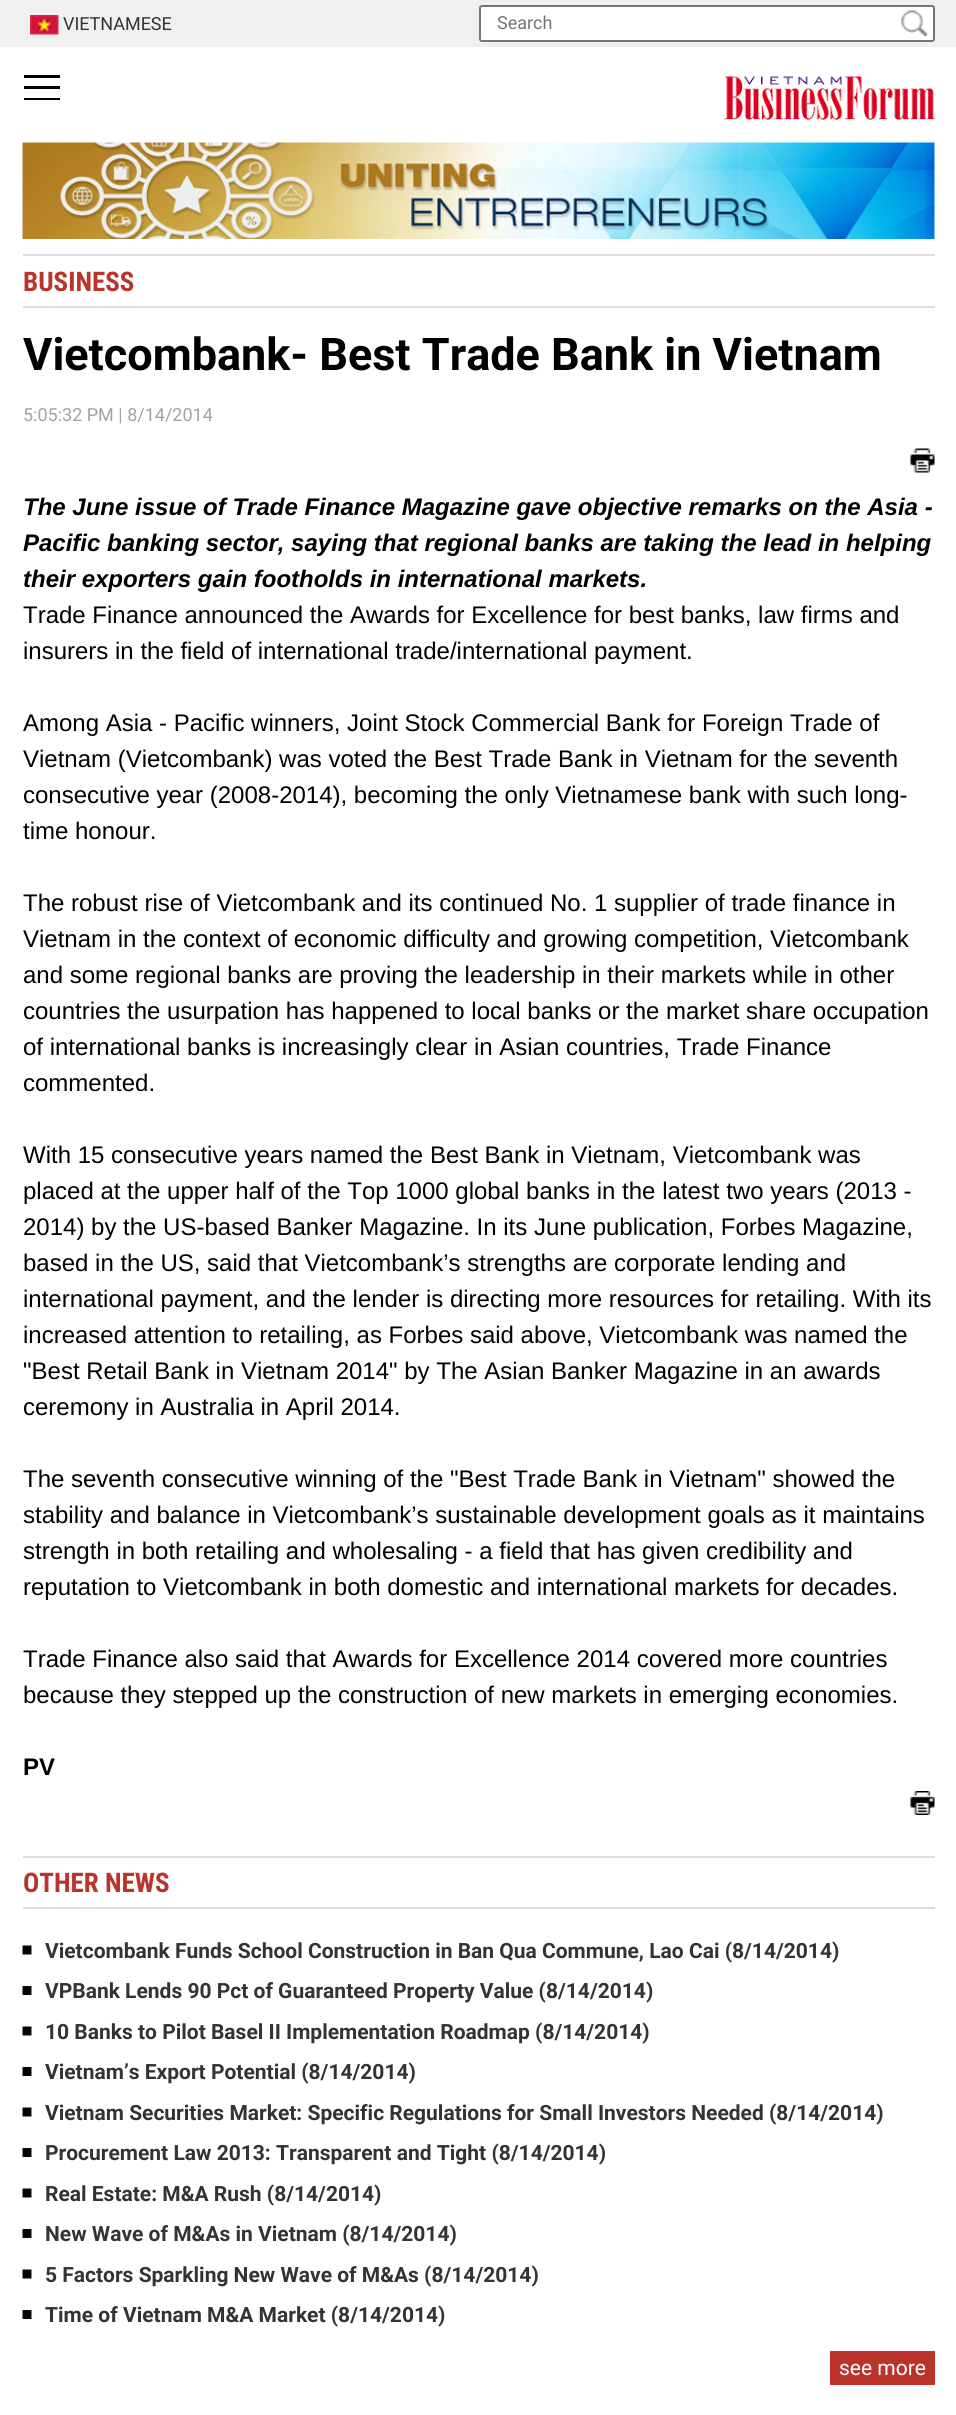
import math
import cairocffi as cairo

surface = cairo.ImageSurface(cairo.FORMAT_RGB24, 956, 2415)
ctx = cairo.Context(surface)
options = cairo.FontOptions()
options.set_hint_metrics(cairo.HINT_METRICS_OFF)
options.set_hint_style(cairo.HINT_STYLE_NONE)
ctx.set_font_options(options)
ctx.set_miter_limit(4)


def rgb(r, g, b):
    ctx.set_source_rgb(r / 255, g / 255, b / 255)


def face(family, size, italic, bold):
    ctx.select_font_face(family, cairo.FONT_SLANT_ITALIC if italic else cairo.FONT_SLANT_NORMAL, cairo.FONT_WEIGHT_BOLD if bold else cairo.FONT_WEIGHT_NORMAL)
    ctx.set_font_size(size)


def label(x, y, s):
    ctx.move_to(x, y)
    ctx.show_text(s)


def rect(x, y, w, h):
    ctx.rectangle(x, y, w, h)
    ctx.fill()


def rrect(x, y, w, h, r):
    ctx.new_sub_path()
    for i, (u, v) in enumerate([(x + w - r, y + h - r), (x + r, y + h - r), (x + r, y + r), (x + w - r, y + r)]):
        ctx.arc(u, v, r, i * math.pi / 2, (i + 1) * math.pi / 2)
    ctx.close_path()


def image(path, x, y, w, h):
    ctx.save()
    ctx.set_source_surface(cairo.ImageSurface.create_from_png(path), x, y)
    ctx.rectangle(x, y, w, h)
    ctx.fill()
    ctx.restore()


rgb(255, 255, 255)
ctx.paint()
rgb(240, 240, 240)
rect(0, 0, 956, 47)
image('image0.png', 30, 15, 29, 20)
face('Roboto', 18, 0, 0)
rgb(51, 51, 51)
label(63, 30, 'VIETNAMESE')
rgb(255, 255, 255)
rrect(480, 6, 454, 35, 2)
ctx.fill_preserve()
rgb(118, 118, 118)
ctx.stroke()
rgb(117, 117, 117)
label(497, 29, 'Search')
image('image1.png', 901, 10, 26, 26)
rgb(0, 0, 0)
rect(24, 75, 36, 3)
rect(24, 86, 36, 3)
rect(24, 98, 36, 2)
image('image2.png', 724, 76, 211, 44)
image('image3.png', 22, 142, 913, 97)
rgb(222, 222, 222)
rect(23, 254, 912, 2)
rect(23, 306, 912, 2)
face('Roboto Condensed', 27, 0, 1)
rgb(187, 52, 44)
label(23, 291, 'BUSINESS')
face('Roboto', 45, 0, 1)
rgb(0, 0, 0)
label(23, 370, 'Vietcombank- Best Trade Bank in Vietnam')
face('Roboto', 18, 0, 0)
rgb(162, 162, 162)
label(23, 421, '5:05:32 PM | 8/14/2014')
image('image4.png', 910, 448, 25, 25)
face('Liberation Sans', 24, 1, 1)
rgb(0, 0, 0)
label(23, 515, 'The June issue of Trade Finance Magazine gave objective remarks on the Asia -')
label(23, 551, 'Pacific banking sector, saying that regional banks are taking the lead in helping')
label(23, 587, 'their exporters gain footholds in international markets.')
face('Liberation Sans', 24, 0, 0)
label(23, 623, 'Trade Finance announced the Awards for Excellence for best banks, law firms and')
label(23, 659, 'insurers in the field of international trade/international payment.')
label(23, 731, 'Among Asia - Pacific winners, Joint Stock Commercial Bank for Foreign Trade of')
label(23, 767, 'Vietnam (Vietcombank) was voted the Best Trade Bank in Vietnam for the seventh')
label(23, 803, 'consecutive year (2008-2014), becoming the only Vietnamese bank with such long-')
label(23, 839, 'time honour.')
label(23, 911, 'The robust rise of Vietcombank and its continued No. 1 supplier of trade finance in')
label(23, 947, 'Vietnam in the context of economic difficulty and growing competition, Vietcombank')
label(23, 983, 'and some regional banks are proving the leadership in their markets while in other')
label(23, 1019, 'countries the usurpation has happened to local banks or the market share occupation')
label(23, 1055, 'of international banks is increasingly clear in Asian countries, Trade Finance')
label(23, 1091, 'commented.')
label(23, 1163, 'With 15 consecutive years named the Best Bank in Vietnam, Vietcombank was')
label(23, 1199, 'placed at the upper half of the Top 1000 global banks in the latest two years (2013 -')
label(23, 1235, '2014) by the US-based Banker Magazine. In its June publication, Forbes Magazine,')
label(23, 1271, 'based in the US, said that Vietcombank’s strengths are corporate lending and')
label(23, 1307, 'international payment, and the lender is directing more resources for retailing. With its')
label(23, 1343, 'increased attention to retailing, as Forbes said above, Vietcombank was named the')
label(23, 1379, '"Best Retail Bank in Vietnam 2014" by The Asian Banker Magazine in an awards')
label(23, 1415, 'ceremony in Australia in April 2014.')
label(23, 1487, 'The seventh consecutive winning of the "Best Trade Bank in Vietnam" showed the')
label(23, 1523, 'stability and balance in Vietcombank’s sustainable development goals as it maintains')
label(23, 1559, 'strength in both retailing and wholesaling - a field that has given credibility and')
label(23, 1595, 'reputation to Vietcombank in both domestic and international markets for decades.')
label(23, 1667, 'Trade Finance also said that Awards for Excellence 2014 covered more countries')
label(23, 1703, 'because they stepped up the construction of new markets in emerging economies.')
face('Liberation Sans', 24, 0, 1)
label(23, 1775, 'PV')
image('image5.png', 910, 1791, 25, 24)
rgb(222, 222, 222)
rect(23, 1856, 912, 2)
rect(23, 1907, 912, 2)
face('Roboto Condensed', 27, 0, 1)
rgb(187, 52, 44)
label(23, 1892, 'OTHER NEWS')
image('image6.png', 22, 1945, 10, 10)
face('Roboto', 21, 0, 1)
rgb(51, 51, 51)
label(45, 1958, 'Vietcombank Funds School Construction in Ban Qua Commune, Lao Cai (8/14/2014)')
image('image7.png', 22, 1986, 10, 9)
label(45, 1998, 'VPBank Lends 90 Pct of Guaranteed Property Value (8/14/2014)')
image('image6.png', 22, 2026, 10, 10)
label(45, 2039, '10 Banks to Pilot Basel II Implementation Roadmap (8/14/2014)')
image('image7.png', 22, 2067, 10, 9)
label(45, 2079, 'Vietnam’s Export Potential (8/14/2014)')
image('image6.png', 22, 2107, 10, 10)
label(45, 2120, 'Vietnam Securities Market: Specific Regulations for Small Investors Needed (8/14/2014)')
image('image7.png', 22, 2148, 10, 9)
label(45, 2160, 'Procurement Law 2013: Transparent and Tight (8/14/2014)')
image('image6.png', 22, 2188, 10, 10)
label(45, 2201, 'Real Estate: M&A Rush (8/14/2014)')
image('image7.png', 22, 2229, 10, 9)
label(45, 2241, 'New Wave of M&As in Vietnam (8/14/2014)')
image('image6.png', 22, 2269, 10, 10)
label(45, 2282, '5 Factors Sparkling New Wave of M&As (8/14/2014)')
image('image7.png', 22, 2310, 10, 9)
label(45, 2322, 'Time of Vietnam M&A Market (8/14/2014)')
rgb(187, 52, 44)
rect(830, 2351, 105, 34)
face('Roboto', 21, 0, 0)
rgb(255, 255, 255)
label(839, 2375, 'see more')
surface.write_to_png('render.png')
